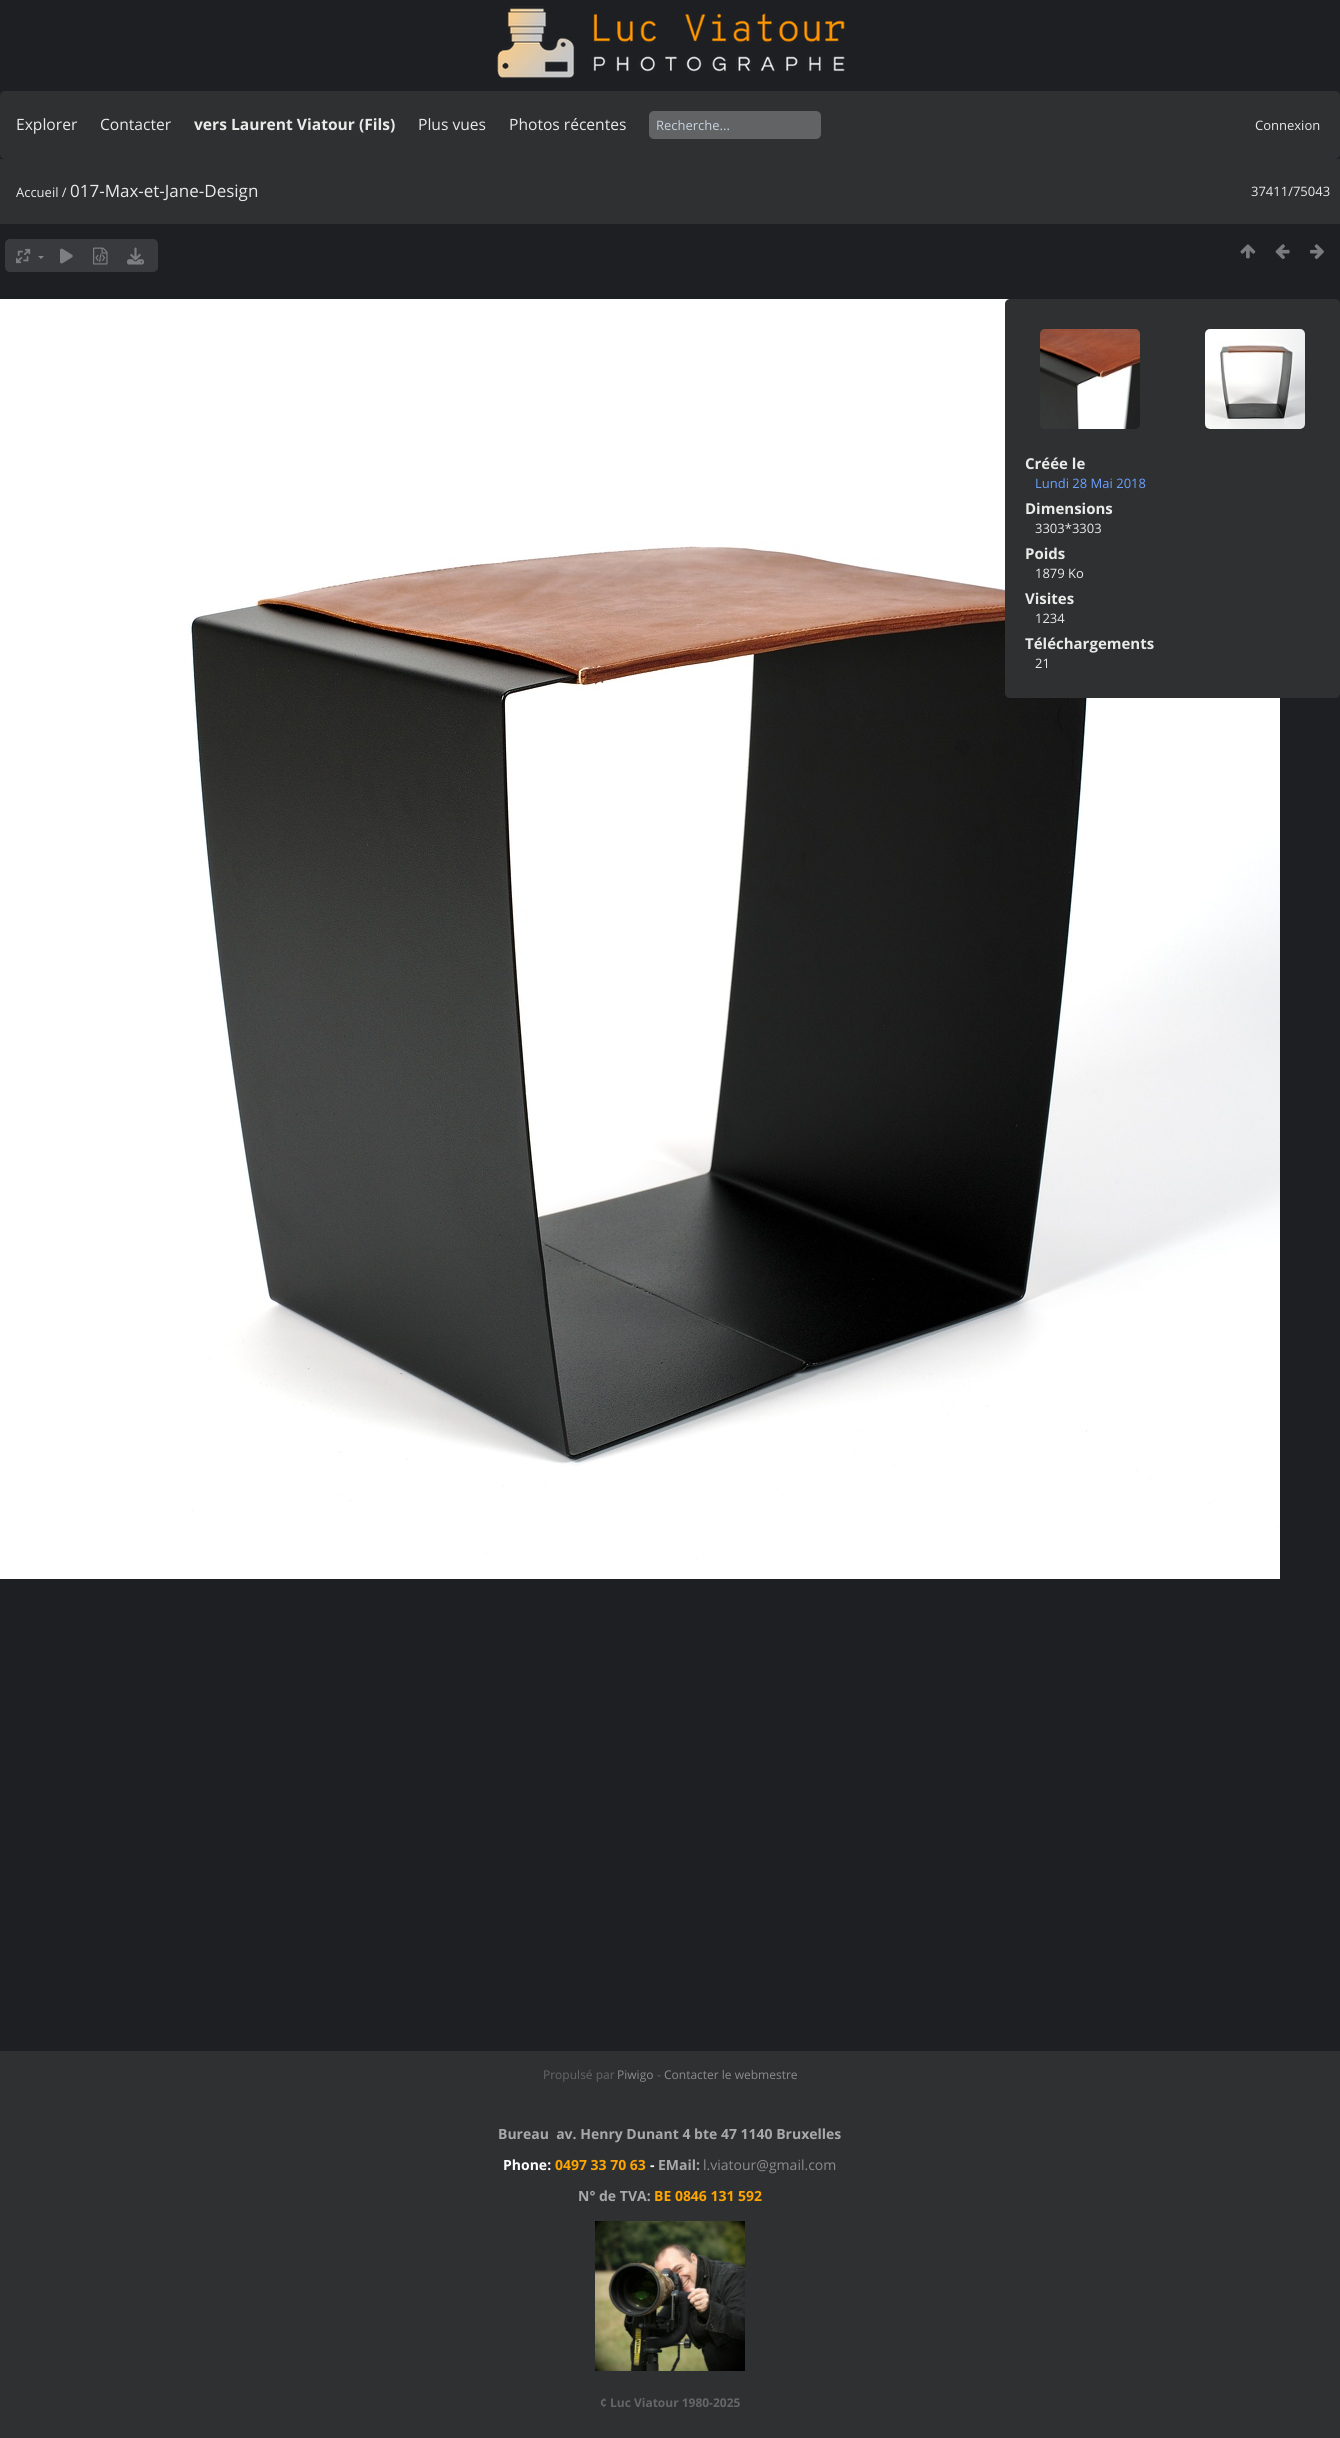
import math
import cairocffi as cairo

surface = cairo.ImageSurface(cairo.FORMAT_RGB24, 1340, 2438)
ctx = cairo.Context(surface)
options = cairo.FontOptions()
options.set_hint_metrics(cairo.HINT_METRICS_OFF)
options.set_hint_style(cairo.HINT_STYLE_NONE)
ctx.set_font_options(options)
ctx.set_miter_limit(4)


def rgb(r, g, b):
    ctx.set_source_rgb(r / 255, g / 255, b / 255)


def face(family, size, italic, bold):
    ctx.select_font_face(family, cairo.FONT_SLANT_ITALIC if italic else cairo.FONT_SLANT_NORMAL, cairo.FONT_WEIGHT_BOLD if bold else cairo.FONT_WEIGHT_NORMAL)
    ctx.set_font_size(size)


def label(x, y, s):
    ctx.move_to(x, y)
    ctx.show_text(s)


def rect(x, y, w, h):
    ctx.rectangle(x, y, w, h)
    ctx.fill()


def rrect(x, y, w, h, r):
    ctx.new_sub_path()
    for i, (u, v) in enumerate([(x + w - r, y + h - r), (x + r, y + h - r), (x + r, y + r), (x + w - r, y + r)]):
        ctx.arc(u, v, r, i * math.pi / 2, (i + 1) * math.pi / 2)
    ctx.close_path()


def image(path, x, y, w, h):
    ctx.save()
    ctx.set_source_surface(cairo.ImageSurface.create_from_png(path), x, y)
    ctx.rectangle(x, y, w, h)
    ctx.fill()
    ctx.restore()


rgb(30, 31, 35)
ctx.paint()
image('image0.png', 497, 6, 348, 72)
rgb(47, 48, 50)
rrect(0, 91, 1340, 68, 5)
ctx.fill()
face('Open Sans', 15.6, 0, 0)
rgb(234, 234, 233)
label(16, 130, 'Explorer')
label(100, 130, 'Contacter')
face('Open Sans', 15.6, 0, 1)
label(194, 130, 'vers Laurent Viatour (Fils)')
face('Open Sans', 15.6, 0, 0)
label(418, 130, 'Plus vues')
label(509, 130, 'Photos récentes')
rgb(97, 99, 100)
rrect(649, 111, 172, 28, 5)
ctx.fill()
face('Open Sans', 13, 0, 0)
rgb(199, 211, 225)
label(656, 130, 'Recherche...')
rgb(234, 234, 233)
label(1255, 130, 'Connexion')
rgb(47, 48, 50)
rect(0, 159, 1340, 65)
rgb(234, 234, 233)
label(16, 197, 'Accueil /')
face('Open Sans', 17, 0, 0)
label(70, 197, '017-Max-et-Jane-Design')
face('Open Sans', 13, 0, 0)
label(1251, 196, '37411/75043')
rgb(57, 58, 61)
rrect(5, 239, 153, 33, 5)
ctx.fill()
image('image1.png', 16, 248, 15, 16)
rgb(132, 133, 136)
ctx.new_path()
ctx.move_to(38, 256)
ctx.line_to(44, 256)
ctx.line_to(41, 259)
ctx.close_path()
ctx.fill()
image('image2.png', 60, 248, 13, 16)
image('image3.png', 93, 247, 15, 18)
image('image4.png', 127, 247, 17, 18)
image('image5.png', 1240, 244, 16, 15)
image('image6.png', 1275, 244, 15, 15)
image('image7.png', 1310, 244, 14, 15)
image('image8.png', 0, 299, 1280, 1280)
rgb(47, 48, 50)
rrect(1005, 299, 335, 399, 5)
ctx.fill()
image('image9.png', 1040, 329, 100, 100)
image('image10.png', 1205, 329, 100, 100)
face('Open Sans', 15, 0, 1)
rgb(234, 234, 233)
label(1025, 469, 'Créée le')
face('Open Sans', 13, 0, 0)
rgb(107, 161, 255)
label(1035, 488, 'Lundi 28 Mai 2018')
face('Open Sans', 15, 0, 1)
rgb(234, 234, 233)
label(1025, 514, 'Dimensions')
face('Open Sans', 13, 0, 0)
label(1035, 533, '3303*3303')
face('Open Sans', 15, 0, 1)
label(1025, 559, 'Poids')
face('Open Sans', 13, 0, 0)
label(1035, 578, '1879 Ko')
face('Open Sans', 15, 0, 1)
label(1025, 604, 'Visites')
face('Open Sans', 13, 0, 0)
label(1035, 623, '1234')
face('Open Sans', 15, 0, 1)
label(1025, 649, 'Téléchargements')
face('Open Sans', 13, 0, 0)
label(1035, 668, '21')
rgb(47, 48, 50)
rect(0, 2051, 1340, 387)
face('Open Sans', 12, 0, 0)
rgb(102, 102, 102)
label(543, 2079, 'Propulsé par')
rgb(141, 139, 139)
label(617, 2079, 'Piwigo')
rgb(102, 102, 102)
label(657, 2079, '-')
rgb(141, 139, 139)
label(664, 2079, 'Contacter le webmestre')
face('Open Sans', 14, 0, 1)
rgb(169, 169, 169)
label(498, 2139, 'Bureau  av. Henry Dunant 4 bte 47 1140 Bruxelles')
rgb(255, 255, 255)
label(503, 2170, 'Phone:')
rgb(255, 165, 0)
label(555, 2170, '0497 33 70 63')
rgb(255, 255, 255)
label(650, 2170, '-')
rgb(169, 169, 169)
label(658, 2170, 'EMail:')
face('Open Sans', 14, 0, 0)
rgb(141, 139, 139)
label(703, 2170, 'l.viatour@gmail.com')
face('Open Sans', 14, 0, 1)
rgb(169, 169, 169)
label(578, 2201, 'N° de TVA:')
rgb(255, 165, 0)
label(654, 2201, 'BE 0846 131 592')
image('image11.png', 595, 2221, 150, 150)
face('Open Sans', 12, 0, 1)
rgb(102, 102, 102)
label(600, 2407, '¢ Luc Viatour 1980-2025')
surface.write_to_png('render.png')
